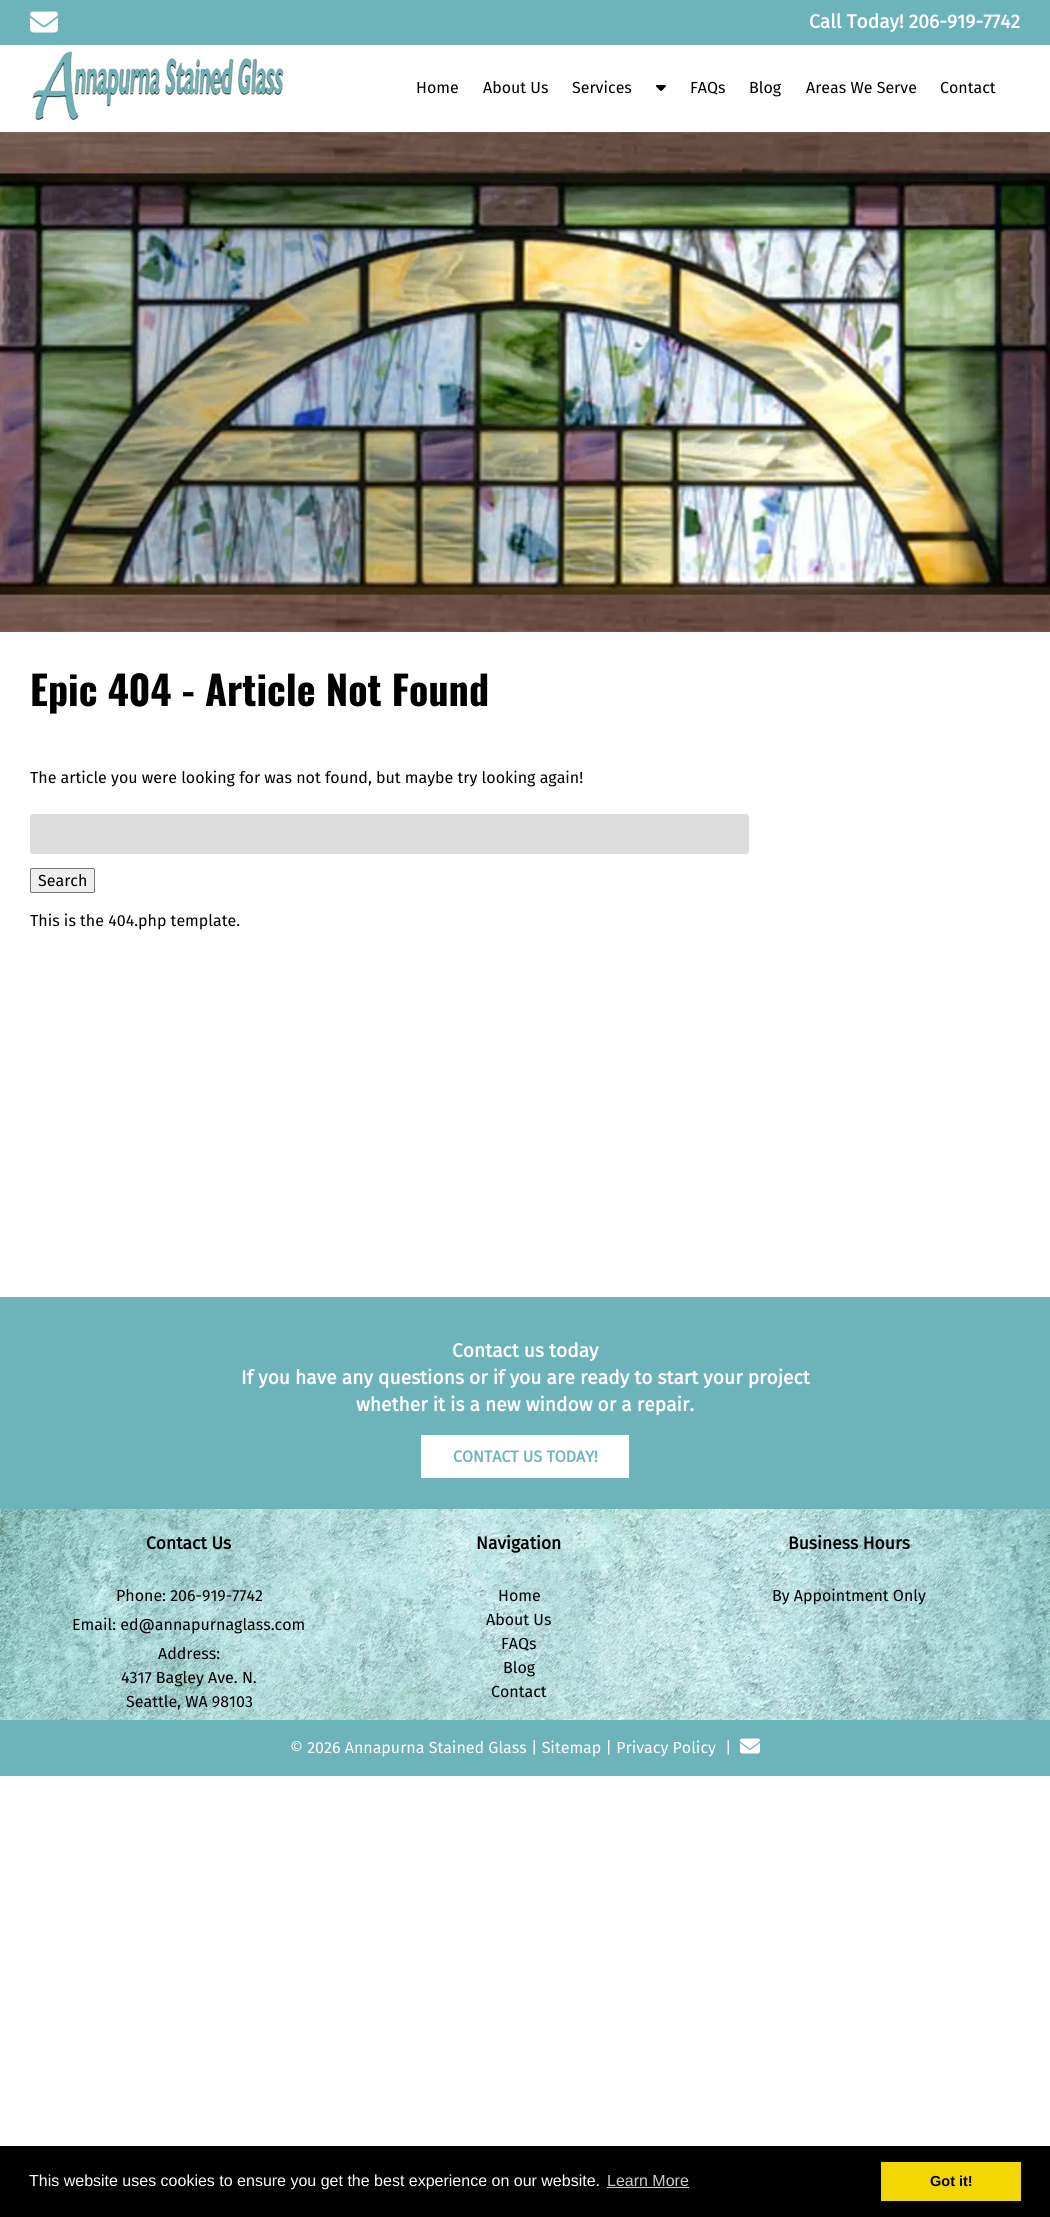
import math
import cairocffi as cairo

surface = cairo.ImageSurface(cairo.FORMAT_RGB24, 1050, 2217)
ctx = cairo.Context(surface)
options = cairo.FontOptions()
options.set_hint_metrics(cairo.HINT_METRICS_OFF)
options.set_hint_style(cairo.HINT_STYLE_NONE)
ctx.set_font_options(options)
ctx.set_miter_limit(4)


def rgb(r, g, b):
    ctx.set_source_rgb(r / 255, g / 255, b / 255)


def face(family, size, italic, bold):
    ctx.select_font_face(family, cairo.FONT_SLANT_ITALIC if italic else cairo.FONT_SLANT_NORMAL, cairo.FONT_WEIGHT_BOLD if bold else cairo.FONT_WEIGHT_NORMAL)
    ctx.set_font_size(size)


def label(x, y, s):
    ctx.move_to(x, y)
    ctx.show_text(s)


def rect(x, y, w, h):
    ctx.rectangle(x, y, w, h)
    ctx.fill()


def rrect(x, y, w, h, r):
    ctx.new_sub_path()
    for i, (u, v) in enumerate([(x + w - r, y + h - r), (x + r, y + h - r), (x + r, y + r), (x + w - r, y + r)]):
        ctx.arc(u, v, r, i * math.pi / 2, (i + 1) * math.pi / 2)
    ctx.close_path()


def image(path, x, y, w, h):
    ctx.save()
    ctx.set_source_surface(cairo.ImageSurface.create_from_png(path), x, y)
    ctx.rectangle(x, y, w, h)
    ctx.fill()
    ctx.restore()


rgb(255, 255, 255)
ctx.paint()
rgb(108, 180, 186)
rect(0, 0, 1050, 45)
image('image0.png', 30, 11, 28, 22)
face('Fira Sans', 19.2, 0, 1)
rgb(255, 255, 255)
label(809, 28, 'Call Today! 206-919-7742')
image('image1.png', 32, 51, 252, 69)
face('Fira Sans', 16, 0, 0)
rgb(0, 0, 0)
label(416, 93, 'Home')
label(483, 93, 'About Us')
label(572, 93, 'Services')
image('image2.png', 656, 85, 10, 6)
label(690, 93, 'FAQs')
label(749, 93, 'Blog')
label(806, 93, 'Areas We Serve')
label(940, 93, 'Contact')
image('image3.png', 0, 132, 1050, 500)
face('Oswald', 40, 0, 1)
label(30, 706, 'Epic 404 - Article Not Found')
face('Fira Sans', 16, 0, 0)
label(30, 783, 'The article you were looking for was not found, but maybe try looking again!')
rgb(221, 221, 221)
rrect(30, 814, 719, 40, 3)
ctx.fill()
rgb(239, 239, 239)
rrect(30.5, 868.5, 64, 24, 1.5)
ctx.fill_preserve()
rgb(118, 118, 118)
ctx.set_line_width(1)
ctx.stroke()
rgb(0, 0, 0)
label(38, 886, 'Search')
label(30, 926, 'This is the 404.php template.')
rgb(108, 180, 186)
rect(0, 1297, 1050, 212)
face('Fira Sans', 19.2, 0, 1)
rgb(255, 255, 255)
label(452, 1357, 'Contact us today')
label(241, 1384, 'If you have any questions or if you are ready to start your project')
label(356, 1411, 'whether it is a new window or a repair.')
rect(421, 1435, 208, 43)
face('Fira Sans', 16, 0, 1)
rgb(108, 180, 186)
label(453, 1462, 'CONTACT US TODAY!')
image('image4.png', 0, 1509, 1050, 211)
face('Fira Sans', 17.5, 0, 1)
rgb(0, 0, 0)
label(146, 1549, 'Contact Us')
face('Fira Sans', 16, 0, 0)
label(116, 1601, 'Phone: 206-919-7742')
label(72, 1630, 'Email: ed@annapurnaglass.com')
label(158, 1659, 'Address:')
label(121, 1683, '4317 Bagley Ave. N.')
label(126, 1707, 'Seattle, WA 98103')
face('Fira Sans', 17.5, 0, 1)
label(476, 1549, 'Navigation')
face('Fira Sans', 16, 0, 0)
label(498, 1601, 'Home')
label(486, 1625, 'About Us')
label(501, 1649, 'FAQs')
label(503, 1673, 'Blog')
label(491, 1697, 'Contact')
face('Fira Sans', 17.5, 0, 1)
label(788, 1549, 'Business Hours')
face('Fira Sans', 16, 0, 0)
label(772, 1601, 'By Appointment Only')
rgb(108, 180, 186)
rect(0, 1720, 1050, 56)
rgb(255, 255, 255)
label(290, 1753, '© 2026 Annapurna Stained Glass | Sitemap | Privacy Policy')
label(725, 1753, '|')
image('image5.png', 740, 1738, 20, 16)
rgb(0, 0, 0)
rect(0, 2146, 1050, 71)
face('Liberation Sans', 16, 0, 0)
rgb(255, 255, 255)
label(29, 2186, 'This website uses cookies to ensure you get the best experience on our website.')
rgb(204, 204, 204)
label(607, 2186, 'Learn More')
rect(607, 2187, 82, 1)
rgb(241, 214, 0)
rect(881, 2162, 140, 39)
face('Liberation Sans', 14.5, 0, 1)
rgb(0, 0, 0)
label(930, 2186, 'Got it!')
surface.write_to_png('render.png')
